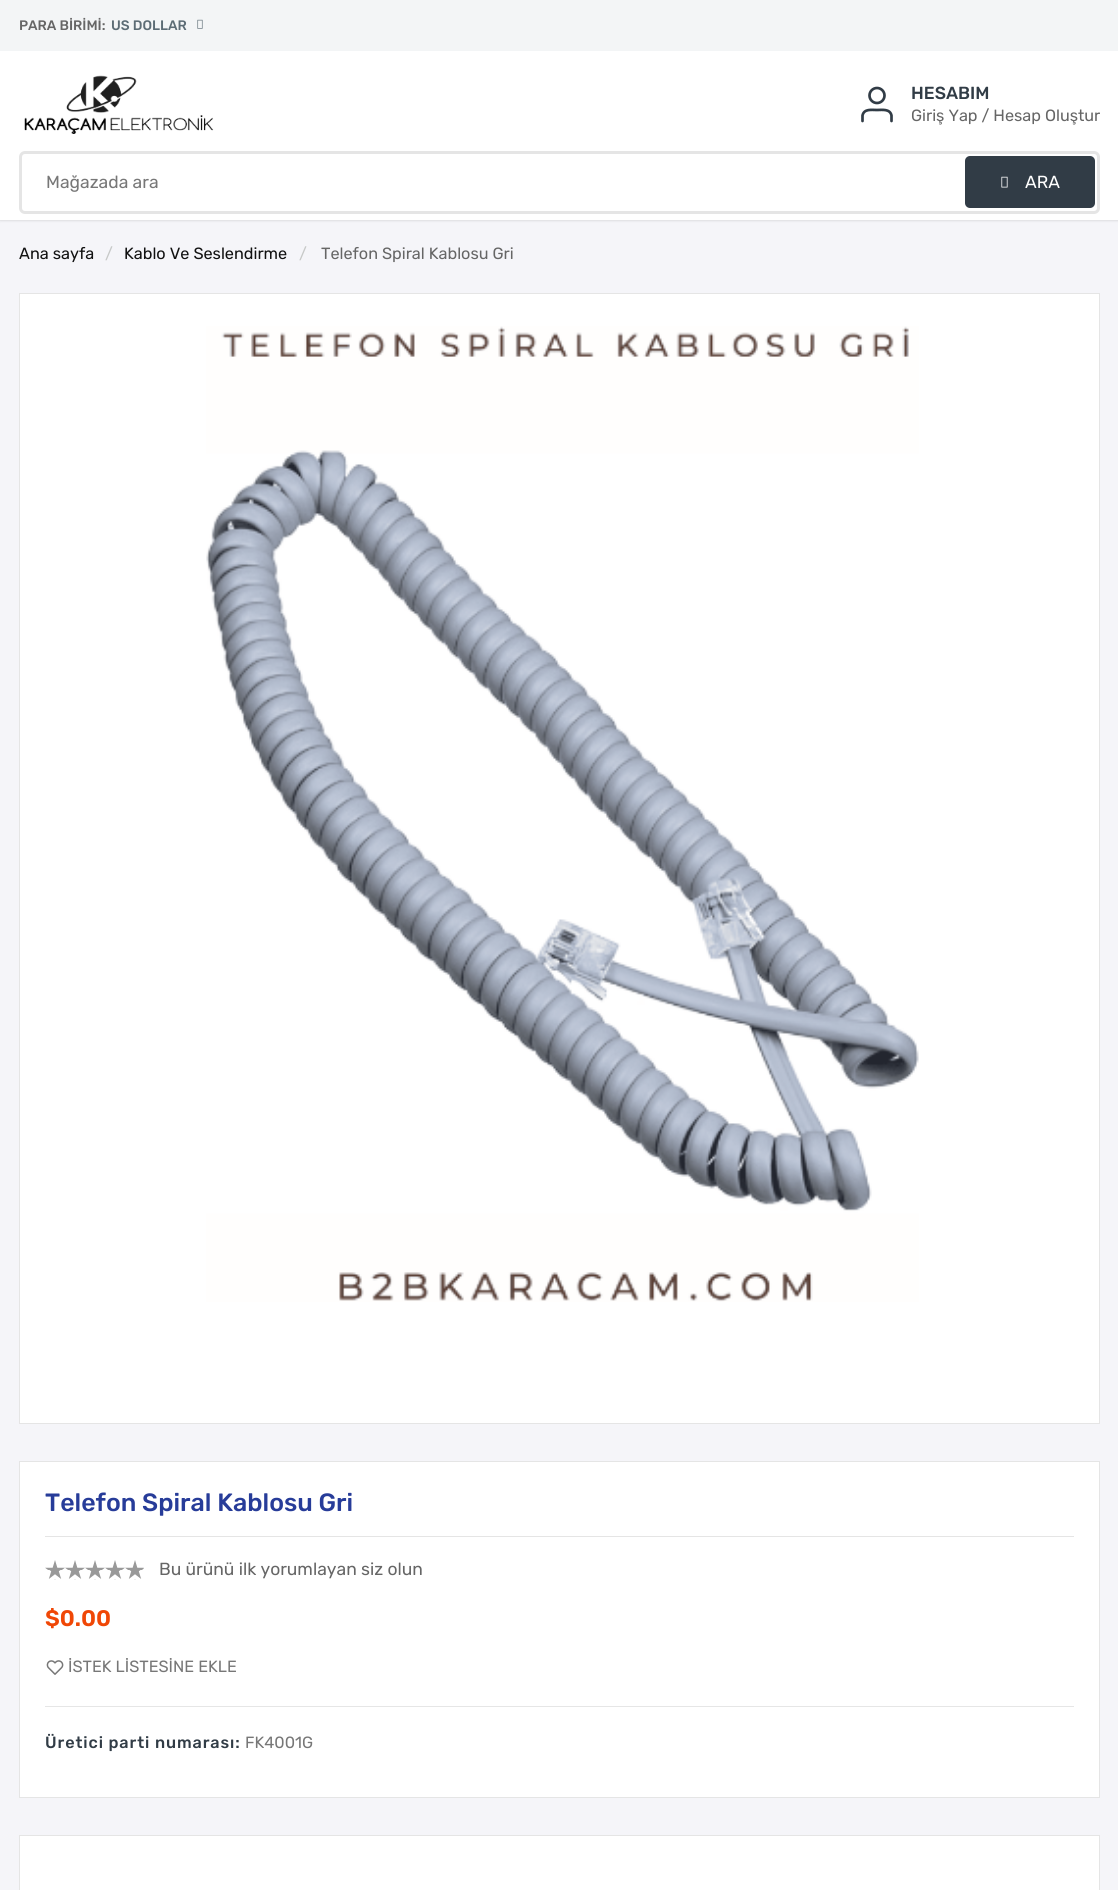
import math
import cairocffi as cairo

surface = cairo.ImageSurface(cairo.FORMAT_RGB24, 1118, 1890)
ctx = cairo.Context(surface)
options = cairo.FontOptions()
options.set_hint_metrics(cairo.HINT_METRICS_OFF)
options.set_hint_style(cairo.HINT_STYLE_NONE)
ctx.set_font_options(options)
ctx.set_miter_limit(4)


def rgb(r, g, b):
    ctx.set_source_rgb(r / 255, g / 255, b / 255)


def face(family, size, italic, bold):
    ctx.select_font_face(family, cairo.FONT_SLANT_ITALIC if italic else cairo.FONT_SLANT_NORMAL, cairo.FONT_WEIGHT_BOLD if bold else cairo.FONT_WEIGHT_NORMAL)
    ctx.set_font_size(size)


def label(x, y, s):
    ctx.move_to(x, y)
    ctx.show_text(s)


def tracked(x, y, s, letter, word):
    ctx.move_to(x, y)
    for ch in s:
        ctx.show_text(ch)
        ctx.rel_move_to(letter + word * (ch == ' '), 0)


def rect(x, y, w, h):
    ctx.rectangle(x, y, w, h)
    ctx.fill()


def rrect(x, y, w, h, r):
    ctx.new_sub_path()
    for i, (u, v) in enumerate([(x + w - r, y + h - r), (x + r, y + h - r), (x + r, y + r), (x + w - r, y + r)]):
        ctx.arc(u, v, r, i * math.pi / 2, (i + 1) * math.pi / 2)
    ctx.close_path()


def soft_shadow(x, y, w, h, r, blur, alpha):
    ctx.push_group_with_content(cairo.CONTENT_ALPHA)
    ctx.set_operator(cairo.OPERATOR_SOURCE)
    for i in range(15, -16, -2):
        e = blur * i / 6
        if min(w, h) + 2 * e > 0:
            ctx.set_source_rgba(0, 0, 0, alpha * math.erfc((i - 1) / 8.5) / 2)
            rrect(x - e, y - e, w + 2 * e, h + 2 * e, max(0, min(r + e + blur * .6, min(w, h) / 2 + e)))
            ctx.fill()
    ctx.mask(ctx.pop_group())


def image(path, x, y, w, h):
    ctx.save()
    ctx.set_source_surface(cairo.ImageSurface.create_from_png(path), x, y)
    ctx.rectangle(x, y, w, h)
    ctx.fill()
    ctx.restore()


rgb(245, 245, 249)
ctx.paint()
rgb(243, 245, 246)
rect(0, 0, 1118, 51)
face('Rubik Medium', 13.75, 0, 0)
rgb(102, 102, 102)
label(19, 30, 'PARA BİRİMİ:')
rgb(92, 108, 117)
label(111, 30, 'US DOLLAR')
image('image0.png', 197, 19, 6, 10)
rgb(0, 0, 0)
soft_shadow(0, 53, 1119, 168, 0, 1, 0.1)
rgb(255, 255, 255)
rect(0, 51, 1118, 169)
image('image1.png', 24, 75, 190, 59)
ctx.new_path()
ctx.move_to(891.5, 121)
ctx.line_to(891.5, 115.5)
ctx.curve_to(890, 108.5, 882, 110, 877, 110)
ctx.curve_to(871.5, 110, 864, 108.5, 862.5, 115.5)
ctx.line_to(862.5, 121)
rgb(49, 60, 70)
ctx.set_line_width(2.7)
ctx.set_line_cap(cairo.LINE_CAP_ROUND)
ctx.set_line_join(cairo.LINE_JOIN_ROUND)
ctx.stroke()
ctx.arc(877, 95.5, 7.5, 0, 2 * math.pi)
ctx.set_line_cap(cairo.LINE_CAP_BUTT)
ctx.set_line_join(cairo.LINE_JOIN_MITER)
ctx.stroke()
face('Rubik Medium', 17.5, 0, 0)
label(911, 99, 'HESABIM')
face('Rubik', 16.25, 0, 0)
rgb(102, 102, 102)
label(911, 121, 'Giriş Yap / Hesap Oluştur')
rrect(20.5, 152.5, 1078, 60, 4.5)
rgb(229, 229, 229)
ctx.set_line_width(3)
ctx.stroke()
face('Rubik', 17.5, 0, 0)
rgb(119, 119, 119)
label(46, 188, 'Mağazada ara')
rgb(49, 60, 70)
rrect(965, 156, 130, 52, 5)
ctx.fill()
image('image2.png', 1001, 176, 7, 12)
rgb(255, 255, 255)
label(1025, 188, 'ARA')
face('Rubik', 16.25, 0, 0)
rgb(17, 17, 17)
label(19, 259, 'Ana sayfa')
rgb(199, 201, 200)
label(105, 259, '/')
rgb(17, 17, 17)
label(124, 259, 'Kablo Ve Seslendirme')
rgb(199, 201, 200)
label(299, 259, '/')
rgb(102, 102, 102)
label(321, 259, 'Telefon Spiral Kablosu Gri')
rgb(255, 255, 255)
ctx.rectangle(19.5, 293.5, 1080, 1130)
ctx.fill_preserve()
rgb(229, 229, 229)
ctx.set_line_width(1)
ctx.stroke()
image('image3.png', 206, 326, 713, 976)
rgb(255, 255, 255)
ctx.rectangle(19.5, 1461.5, 1080, 336)
ctx.fill_preserve()
rgb(229, 229, 229)
ctx.stroke()
rect(45, 1536, 1029, 1)
face('Rubik Medium', 25, 0, 0)
rgb(39, 60, 153)
label(45, 1511, 'Telefon Spiral Kablosu Gri')
image('image4.png', 45, 1560, 99, 20)
face('Rubik', 17.5, 0, 0)
rgb(102, 102, 102)
label(159, 1575, 'Bu ürünü ilk yorumlayan siz olun')
face('Rubik SemiBold', 22.5, 0, 0)
rgb(240, 71, 6)
label(45, 1626, '$0.00')
image('image5.png', 46, 1660, 18, 15)
face('Rubik', 16.25, 0, 0)
rgb(119, 119, 119)
label(68, 1672, 'İSTEK LİSTESİNE EKLE')
rgb(230, 230, 230)
rect(45, 1706, 1029, 1)
face('Rubik Medium', 16.25, 0, 0)
rgb(49, 60, 70)
tracked(45, 1748, 'Üretici parti numarası:', 0.9, 0)
face('Rubik', 16.25, 0, 0)
rgb(119, 119, 119)
label(245, 1748, 'FK4001G')
rgb(255, 255, 255)
ctx.rectangle(19.5, 1835.5, 1080, 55)
ctx.fill_preserve()
rgb(229, 229, 229)
ctx.stroke()
surface.write_to_png('render.png')
